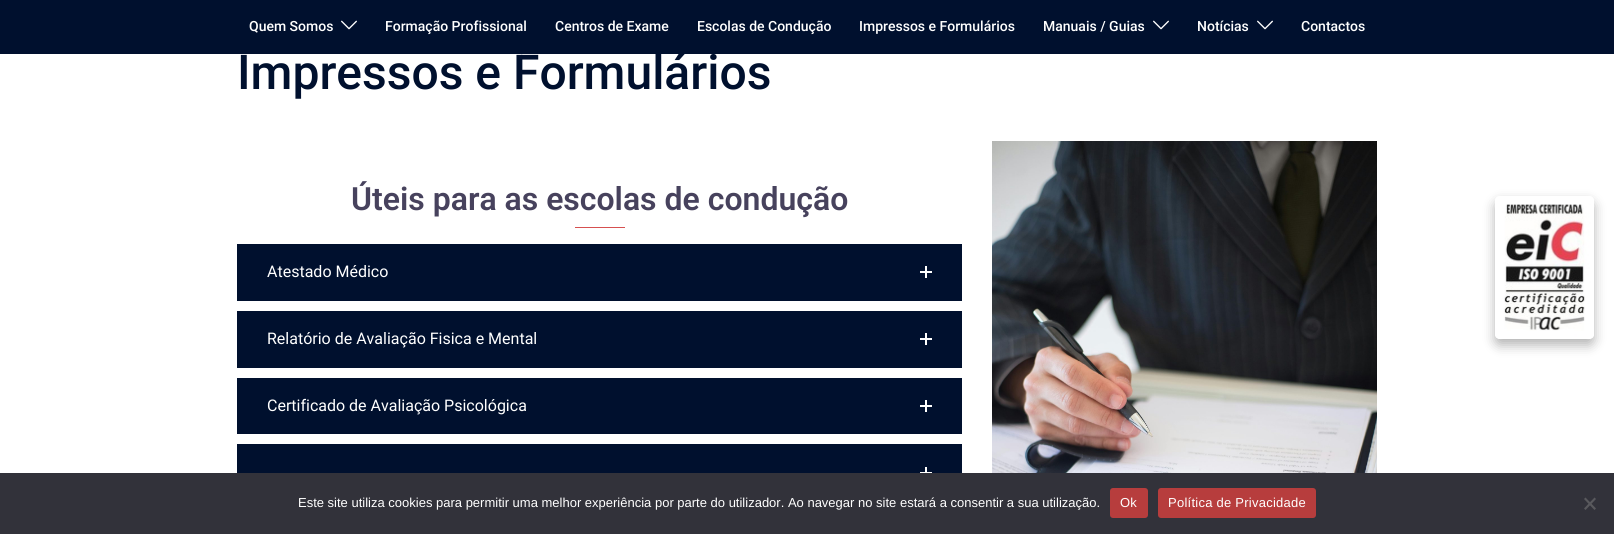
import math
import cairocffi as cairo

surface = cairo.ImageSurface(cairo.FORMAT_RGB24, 1614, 534)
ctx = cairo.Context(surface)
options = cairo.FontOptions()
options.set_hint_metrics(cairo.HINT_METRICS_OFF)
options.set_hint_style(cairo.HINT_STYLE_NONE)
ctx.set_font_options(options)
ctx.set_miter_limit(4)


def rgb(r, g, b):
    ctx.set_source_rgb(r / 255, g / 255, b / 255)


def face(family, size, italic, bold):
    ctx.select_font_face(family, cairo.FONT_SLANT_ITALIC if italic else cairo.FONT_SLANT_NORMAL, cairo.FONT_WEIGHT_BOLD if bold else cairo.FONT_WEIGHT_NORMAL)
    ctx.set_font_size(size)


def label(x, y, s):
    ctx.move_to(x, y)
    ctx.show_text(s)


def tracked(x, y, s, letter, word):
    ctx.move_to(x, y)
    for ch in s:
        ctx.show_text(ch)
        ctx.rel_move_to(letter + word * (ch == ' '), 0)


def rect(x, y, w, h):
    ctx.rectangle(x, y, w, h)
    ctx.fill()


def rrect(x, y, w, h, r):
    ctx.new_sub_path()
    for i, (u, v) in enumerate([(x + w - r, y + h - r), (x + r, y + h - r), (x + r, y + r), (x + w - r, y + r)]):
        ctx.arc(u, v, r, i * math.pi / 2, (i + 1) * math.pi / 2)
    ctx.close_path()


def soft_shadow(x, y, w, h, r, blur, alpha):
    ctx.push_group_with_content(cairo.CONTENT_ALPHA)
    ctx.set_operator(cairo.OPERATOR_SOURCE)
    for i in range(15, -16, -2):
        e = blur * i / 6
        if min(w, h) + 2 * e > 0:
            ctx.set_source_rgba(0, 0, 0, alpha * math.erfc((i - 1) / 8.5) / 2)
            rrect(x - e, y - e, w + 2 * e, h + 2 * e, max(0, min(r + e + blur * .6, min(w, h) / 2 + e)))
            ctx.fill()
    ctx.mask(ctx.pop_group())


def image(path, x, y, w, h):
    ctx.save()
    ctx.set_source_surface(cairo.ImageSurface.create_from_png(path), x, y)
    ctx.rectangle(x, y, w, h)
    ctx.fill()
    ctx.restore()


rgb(255, 255, 255)
ctx.paint()
rgb(0, 16, 46)
rect(0, 0, 1614, 54)
face('Roboto Medium', 14, 0, 0)
rgb(255, 255, 255)
label(249, 31, 'Quem Somos')
image('image0.png', 341, 20, 16, 10)
label(385, 31, 'Formação Profissional')
label(555, 31, 'Centros de Exame')
label(697, 31, 'Escolas de Condução')
label(859, 31, 'Impressos e Formulários')
label(1043, 31, 'Manuais / Guias')
image('image0.png', 1153, 20, 16, 10)
label(1197, 31, 'Notícias')
image('image0.png', 1257, 20, 16, 10)
label(1301, 31, 'Contactos')
face('Roboto Medium', 48, 0, 0)
rgb(0, 16, 46)
label(237, 89, 'Impressos e Formulários')
face('Roboto SemiBold', 32, 0, 0)
rgb(71, 66, 93)
label(351, 210, 'Úteis para as escolas de condução')
rgb(214, 80, 80)
rect(575, 227, 50, 1)
rgb(0, 16, 46)
rect(237, 244, 725, 57)
face('Roboto', 16, 0, 0)
rgb(255, 255, 255)
label(267, 277, 'Atestado Médico')
image('image1.png', 920, 266, 12, 12)
rgb(0, 16, 46)
rect(237, 311, 725, 57)
rgb(255, 255, 255)
label(267, 344, 'Relatório de Avaliação Fisica e Mental')
image('image1.png', 920, 333, 12, 12)
rgb(0, 16, 46)
rect(237, 378, 725, 56)
rgb(255, 255, 255)
label(267, 411, 'Certificado de Avaliação Psicológica')
image('image1.png', 920, 400, 12, 12)
rgb(0, 16, 46)
rect(237, 444, 725, 29)
image('image2.png', 920, 467, 12, 6)
image('image3.png', 992, 141, 385, 332)
ctx.save()
ctx.set_fill_rule(cairo.FILL_RULE_EVEN_ODD)
ctx.new_path()
ctx.move_to(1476, 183)
ctx.line_to(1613, 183)
ctx.line_to(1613, 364)
ctx.line_to(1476, 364)
ctx.close_path()
ctx.move_to(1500, 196)
ctx.line_to(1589, 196)
ctx.curve_to(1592, 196, 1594, 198, 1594, 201)
ctx.line_to(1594, 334)
ctx.curve_to(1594, 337, 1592, 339, 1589, 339)
ctx.line_to(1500, 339)
ctx.curve_to(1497, 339, 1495, 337, 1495, 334)
ctx.line_to(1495, 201)
ctx.curve_to(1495, 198, 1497, 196, 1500, 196)
ctx.close_path()
ctx.clip()
rgb(0, 0, 0)
soft_shadow(1495, 202, 99, 143, 5, 6, 0.3)
ctx.restore()
image('image4.png', 1495, 204, 99, 135)
rgb(50, 50, 58)
rect(0, 473, 1614, 61)
face('Liberation Sans', 13, 0, 0)
rgb(255, 255, 255)
label(298, 507, 'Este site utiliza cookies para permitir uma melhor experiência por parte do utilizador. Ao navegar no site estará a consentir a sua utilização.')
rgb(183, 61, 61)
rrect(1110, 488, 38, 30, 3)
ctx.fill()
rgb(255, 255, 255)
tracked(1120, 507, 'Ok', 0.25, 0)
rgb(183, 61, 61)
rrect(1158, 488, 158, 30, 3)
ctx.fill()
rgb(255, 255, 255)
tracked(1168, 507, 'Política de Privacidade', 0.25, 0)
rgb(89, 89, 93)
ctx.new_path()
ctx.move_to(1594.5, 497.5)
ctx.line_to(1596, 499)
ctx.line_to(1585.5, 510)
ctx.line_to(1584, 508.5)
ctx.close_path()
ctx.fill()
ctx.new_path()
ctx.move_to(1584, 499)
ctx.line_to(1585.5, 497.5)
ctx.line_to(1596, 508.5)
ctx.line_to(1594.5, 510)
ctx.close_path()
ctx.fill()
surface.write_to_png('render.png')
